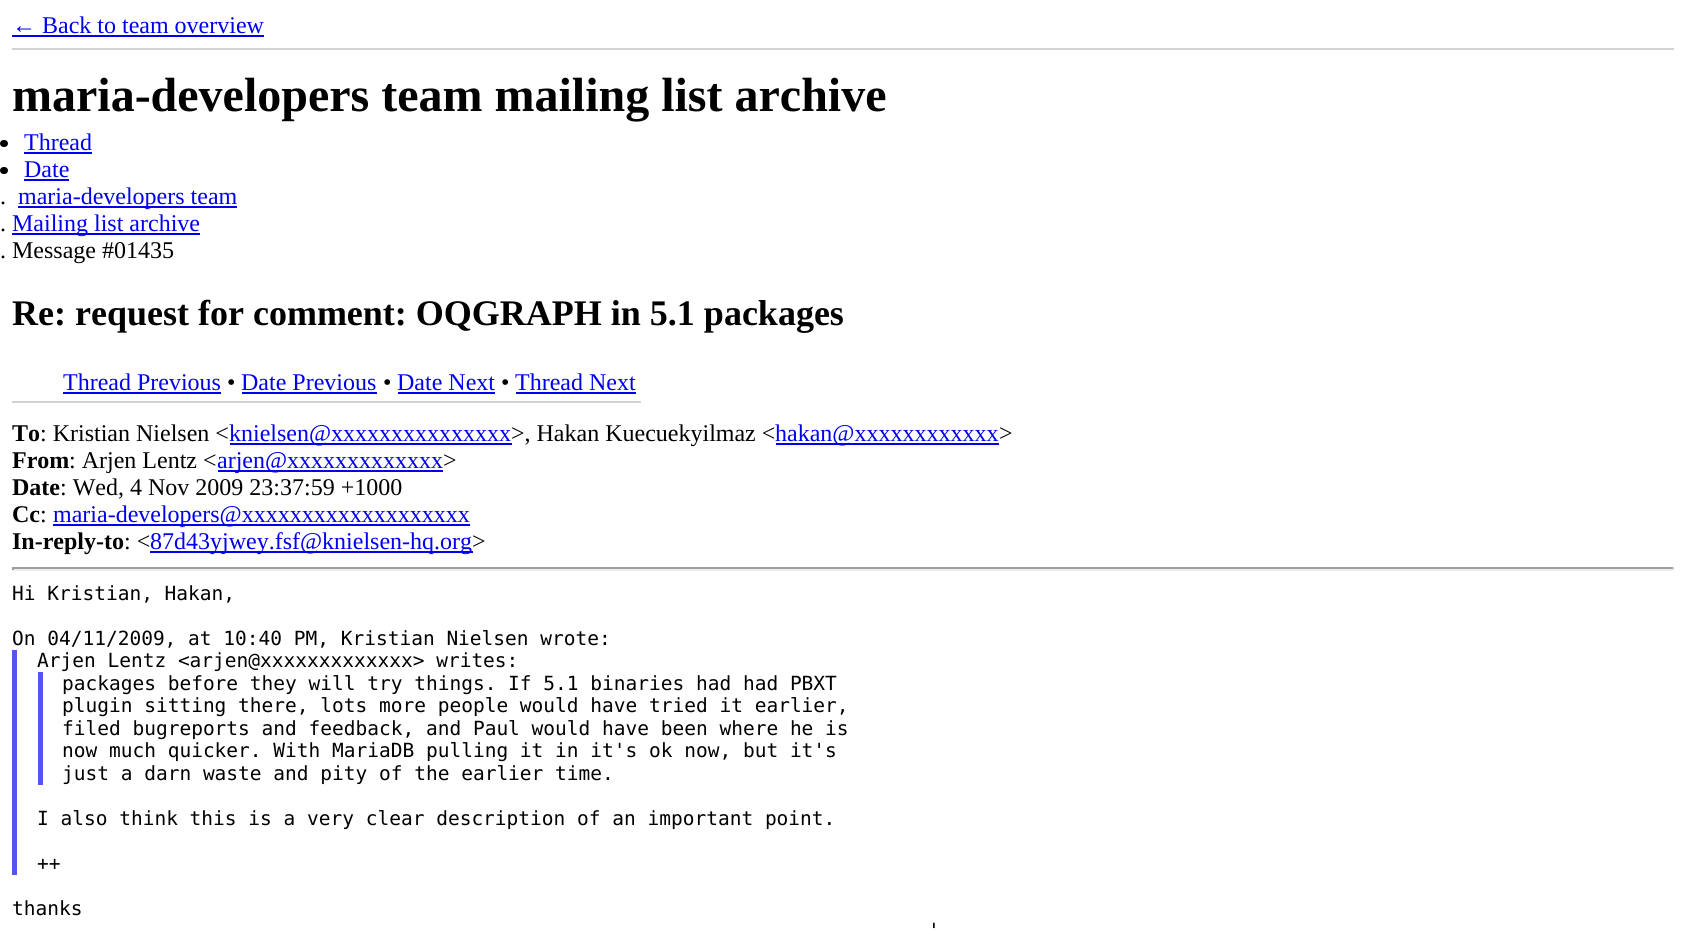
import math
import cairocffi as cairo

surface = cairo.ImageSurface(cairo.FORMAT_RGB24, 1686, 932)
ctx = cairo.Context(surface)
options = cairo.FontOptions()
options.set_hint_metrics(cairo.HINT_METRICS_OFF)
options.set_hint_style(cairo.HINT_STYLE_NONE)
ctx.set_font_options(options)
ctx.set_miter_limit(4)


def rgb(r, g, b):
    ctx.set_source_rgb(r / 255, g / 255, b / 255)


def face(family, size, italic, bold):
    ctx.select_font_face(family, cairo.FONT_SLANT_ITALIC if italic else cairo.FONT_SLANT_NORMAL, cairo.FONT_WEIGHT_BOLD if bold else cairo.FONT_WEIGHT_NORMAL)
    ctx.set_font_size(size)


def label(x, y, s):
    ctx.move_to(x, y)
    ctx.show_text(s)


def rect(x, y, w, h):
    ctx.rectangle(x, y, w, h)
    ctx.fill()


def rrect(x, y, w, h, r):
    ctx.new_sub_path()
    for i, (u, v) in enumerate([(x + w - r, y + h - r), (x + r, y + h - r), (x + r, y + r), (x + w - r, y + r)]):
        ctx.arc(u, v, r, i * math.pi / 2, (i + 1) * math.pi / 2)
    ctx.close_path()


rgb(255, 255, 255)
ctx.paint()
rgb(210, 210, 210)
rect(12, 48, 1662, 2)
face('Liberation Serif', 24, 0, 0)
rgb(0, 0, 238)
label(12, 33, '← Back to team overview')
rect(12, 35, 252, 2)
face('Liberation Serif', 48, 0, 1)
rgb(0, 0, 0)
label(12, 111, 'maria-developers team mailing list archive')
rrect(0, 140, 8, 7, 3.5)
ctx.fill()
face('Liberation Serif', 24, 0, 0)
rgb(0, 0, 238)
label(24, 150, 'Thread')
rect(24, 152, 68, 2)
rgb(0, 0, 0)
rrect(0, 167, 8, 7, 3.5)
ctx.fill()
rgb(0, 0, 238)
label(24, 177, 'Date')
rect(24, 179, 45, 2)
rgb(0, 0, 0)
label(0, 204, '.')
rgb(0, 0, 238)
rect(18, 206, 219, 2)
label(18, 204, 'maria-developers team')
rgb(0, 0, 0)
label(0, 231, '.')
rgb(0, 0, 238)
rect(12, 233, 188, 2)
label(12, 231, 'Mailing list archive')
rgb(0, 0, 0)
label(0, 258, '. Message #01435')
face('Liberation Serif', 36, 0, 1)
label(12, 325, 'Re: request for comment: OQGRAPH in 5.1 packages')
rgb(210, 210, 210)
rect(12, 401, 629, 2)
face('Liberation Serif', 24, 0, 0)
rgb(0, 0, 238)
label(63, 390, 'Thread Previous')
rect(63, 392, 158, 2)
rgb(0, 0, 0)
label(227, 390, '•')
rgb(0, 0, 238)
label(241, 390, 'Date Previous')
rect(242, 392, 135, 2)
rgb(0, 0, 0)
label(383, 390, '•')
rgb(0, 0, 238)
label(397, 390, 'Date Next')
rect(398, 392, 97, 2)
rgb(0, 0, 0)
label(501, 390, '•')
rgb(0, 0, 238)
label(515, 390, 'Thread Next')
rect(516, 392, 120, 2)
face('Liberation Serif', 24, 0, 1)
rgb(0, 0, 0)
label(12, 441, 'To')
face('Liberation Serif', 24, 0, 0)
label(40, 441, ': Kristian Nielsen <')
rgb(0, 0, 238)
rect(230, 443, 282, 2)
label(229, 441, 'knielsen@xxxxxxxxxxxxxxx')
rgb(0, 0, 0)
label(511, 441, '>, Hakan Kuecuekyilmaz <')
rgb(0, 0, 238)
rect(776, 443, 223, 2)
label(775, 441, 'hakan@xxxxxxxxxxxx')
rgb(0, 0, 0)
label(999, 441, '>')
face('Liberation Serif', 24, 0, 1)
label(12, 468, 'From')
face('Liberation Serif', 24, 0, 0)
label(69, 468, ': Arjen Lentz <')
rgb(0, 0, 238)
rect(218, 470, 225, 2)
label(217, 468, 'arjen@xxxxxxxxxxxxx')
rgb(0, 0, 0)
label(443, 468, '>')
face('Liberation Serif', 24, 0, 1)
label(12, 495, 'Date')
face('Liberation Serif', 24, 0, 0)
label(60, 495, ': Wed, 4 Nov 2009 23:37:59 +1000')
face('Liberation Serif', 24, 0, 1)
label(12, 522, 'Cc')
face('Liberation Serif', 24, 0, 0)
label(40, 522, ':')
rgb(0, 0, 238)
rect(53, 524, 417, 2)
label(53, 522, 'maria-developers@xxxxxxxxxxxxxxxxxxx')
face('Liberation Serif', 24, 0, 1)
rgb(0, 0, 0)
label(12, 549, 'In-reply-to')
face('Liberation Serif', 24, 0, 0)
label(124, 549, ': <')
rgb(0, 0, 238)
rect(150, 551, 323, 2)
label(150, 549, '87d43yjwey.fsf@knielsen-hq.org')
rgb(0, 0, 0)
label(472, 549, '>')
rgb(159, 159, 159)
rect(12, 567, 1662, 2)
rgb(238, 238, 238)
rect(1673, 567, 2, 3)
rect(12, 569, 1662, 2)
rgb(159, 159, 159)
rect(12, 567, 2, 3)
face('DejaVu Sans Mono', 19.5, 0, 0)
rgb(0, 0, 0)
label(12, 600, 'Hi Kristian, Hakan,')
label(12, 645, 'On 04/11/2009, at 10:40 PM, Kristian Nielsen wrote:')
rgb(85, 85, 238)
rect(12, 650, 5, 225)
rgb(0, 0, 0)
label(37, 667, 'Arjen Lentz <arjen@xxxxxxxxxxxxx> writes:')
rgb(85, 85, 238)
rect(38, 672, 5, 113)
rgb(0, 0, 0)
label(62, 690, 'packages before they will try things. If 5.1 binaries had had PBXT')
label(62, 712, 'plugin sitting there, lots more people would have tried it earlier,')
label(62, 735, 'filed bugreports and feedback, and Paul would have been where he is')
label(62, 757, 'now much quicker. With MariaDB pulling it in it\'s ok now, but it\'s')
label(62, 780, 'just a darn waste and pity of the earlier time.')
label(37, 825, 'I also think this is a very clear description of an important point.')
label(37, 870, '++')
label(12, 915, 'thanks')
label(928, 937, '\'')
surface.write_to_png('render.png')
